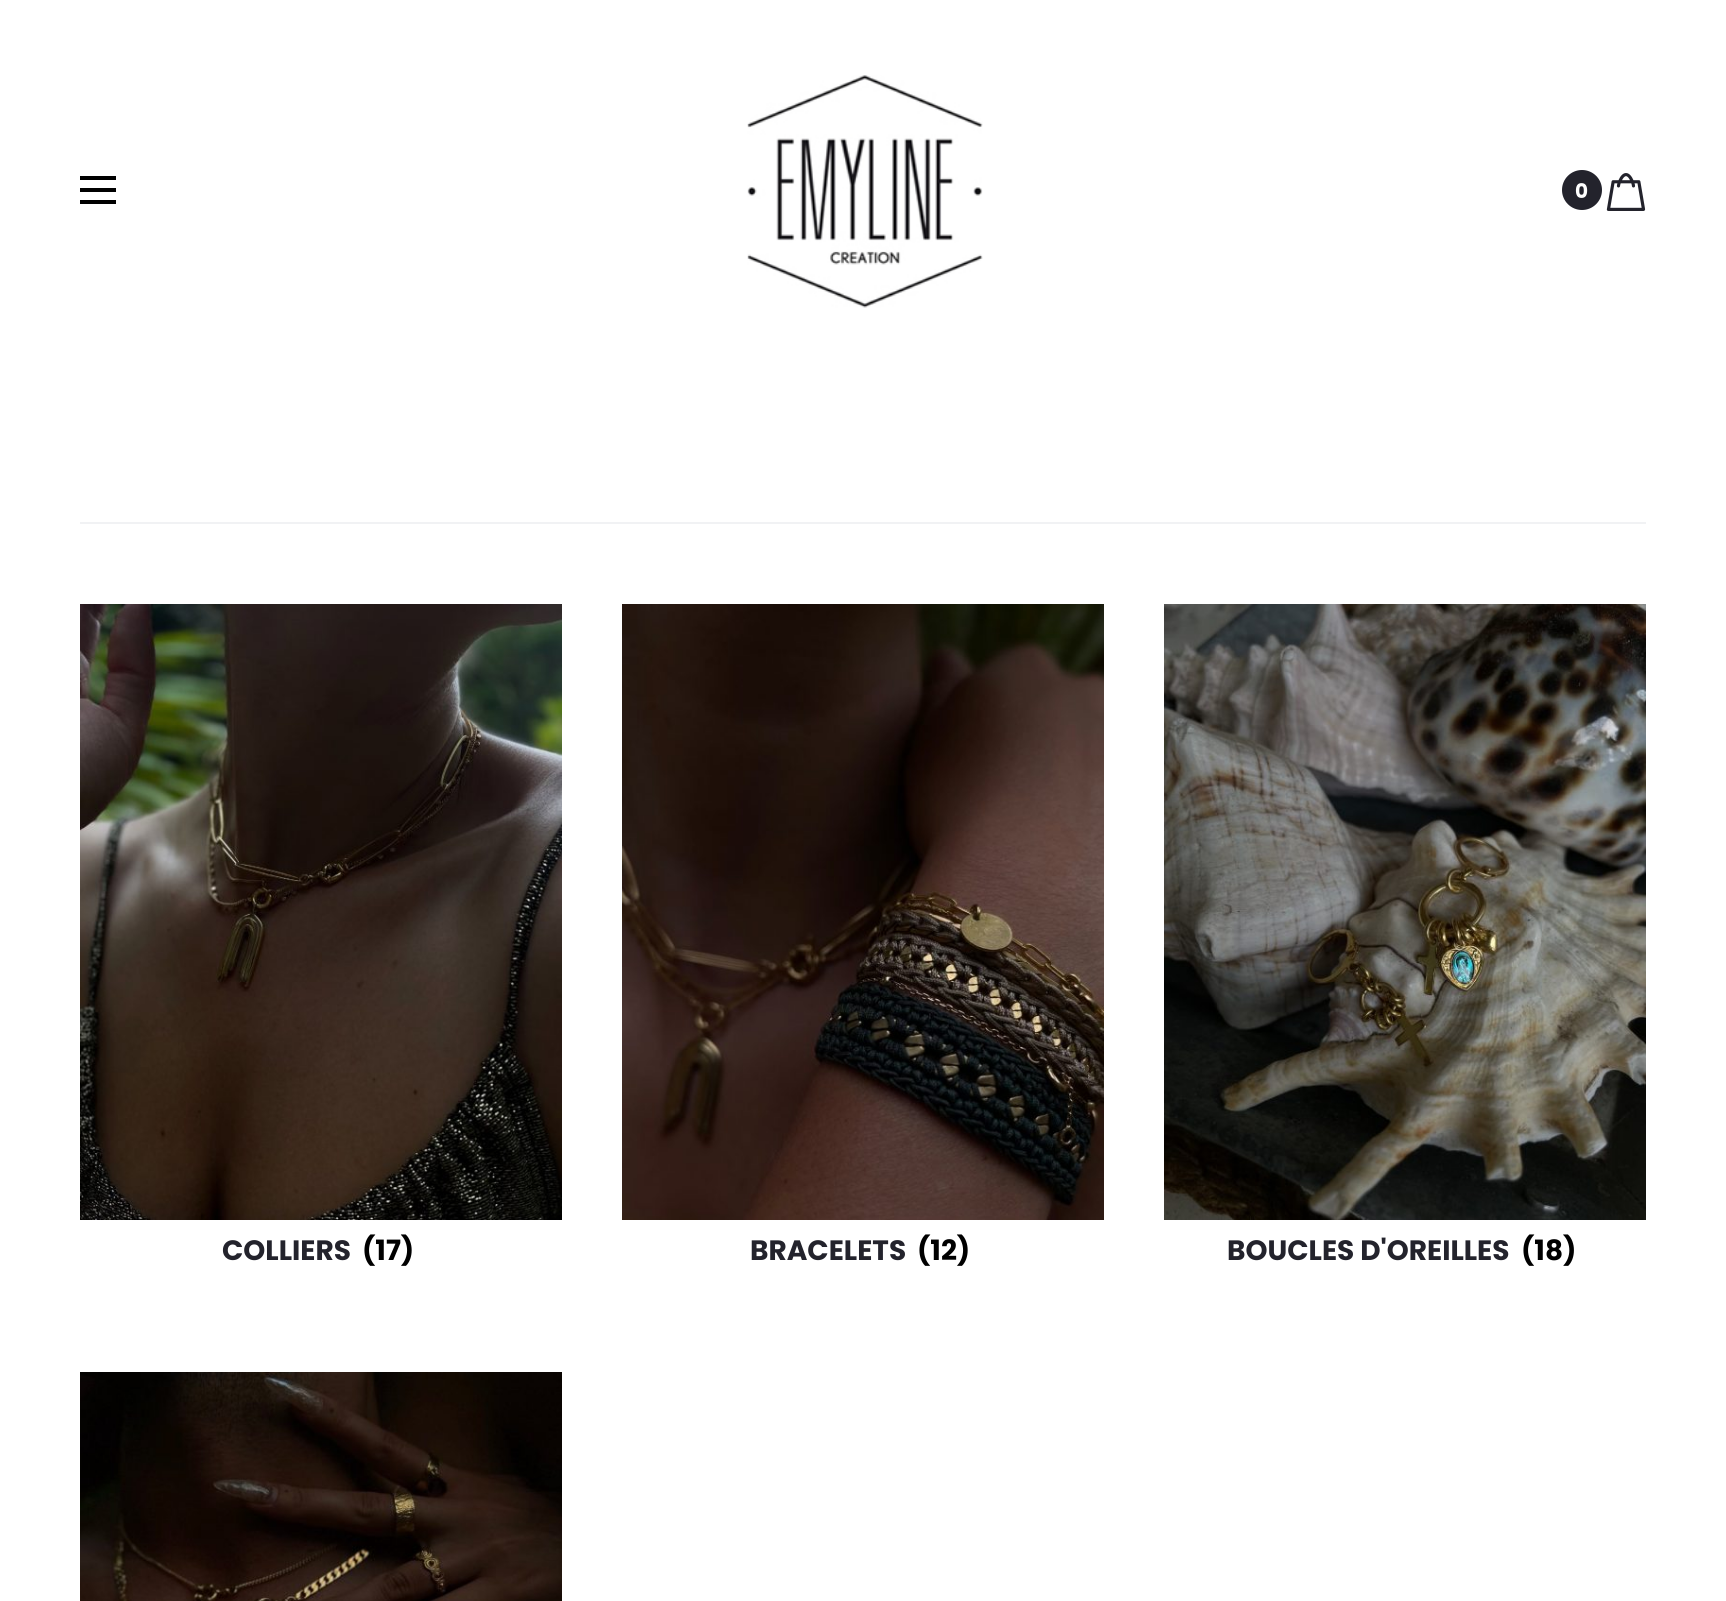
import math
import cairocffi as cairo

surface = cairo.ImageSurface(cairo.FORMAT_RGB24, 1726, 1601)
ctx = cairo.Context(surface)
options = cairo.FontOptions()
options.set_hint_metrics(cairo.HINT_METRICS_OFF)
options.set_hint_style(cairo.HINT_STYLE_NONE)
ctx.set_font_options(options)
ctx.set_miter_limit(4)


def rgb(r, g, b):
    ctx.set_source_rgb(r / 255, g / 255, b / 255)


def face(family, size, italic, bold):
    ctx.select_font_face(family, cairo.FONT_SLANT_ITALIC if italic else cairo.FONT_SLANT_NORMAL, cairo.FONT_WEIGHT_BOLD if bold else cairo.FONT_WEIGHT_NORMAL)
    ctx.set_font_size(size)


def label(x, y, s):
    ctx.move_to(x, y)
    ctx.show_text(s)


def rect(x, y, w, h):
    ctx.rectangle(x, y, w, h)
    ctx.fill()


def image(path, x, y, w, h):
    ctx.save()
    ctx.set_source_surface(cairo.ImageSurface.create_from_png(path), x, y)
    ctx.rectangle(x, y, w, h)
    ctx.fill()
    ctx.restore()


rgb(255, 255, 255)
ctx.paint()
rgb(0, 0, 0)
rect(80, 188, 36, 4)
rect(80, 176, 36, 4)
rect(80, 200, 36, 4)
image('image0.png', 747, 75, 236, 233)
rgb(35, 35, 44)
ctx.arc(1582, 190, 20, 0, 2 * math.pi)
ctx.fill()
face('Poppins', 20, 0, 1)
rgb(255, 255, 255)
label(1575, 198, '0')
image('image1.png', 1606, 173, 40, 38)
rgb(241, 242, 244)
rect(80, 522, 1566, 2)
image('image2.png', 80, 604, 482, 616)
face('Poppins', 28, 0, 1)
rgb(35, 35, 44)
label(222, 1260, 'COLLIERS')
rgb(0, 0, 0)
label(362, 1260, '(17)')
image('image3.png', 622, 604, 482, 616)
rgb(35, 35, 44)
label(750, 1260, 'BRACELETS')
rgb(0, 0, 0)
label(917, 1260, '(12)')
image('image4.png', 1164, 604, 482, 616)
rgb(35, 35, 44)
label(1227, 1260, 'BOUCLES D\'OREILLES')
rgb(0, 0, 0)
label(1521, 1260, '(18)')
image('image5.png', 80, 1372, 482, 229)
surface.write_to_png('render.png')
